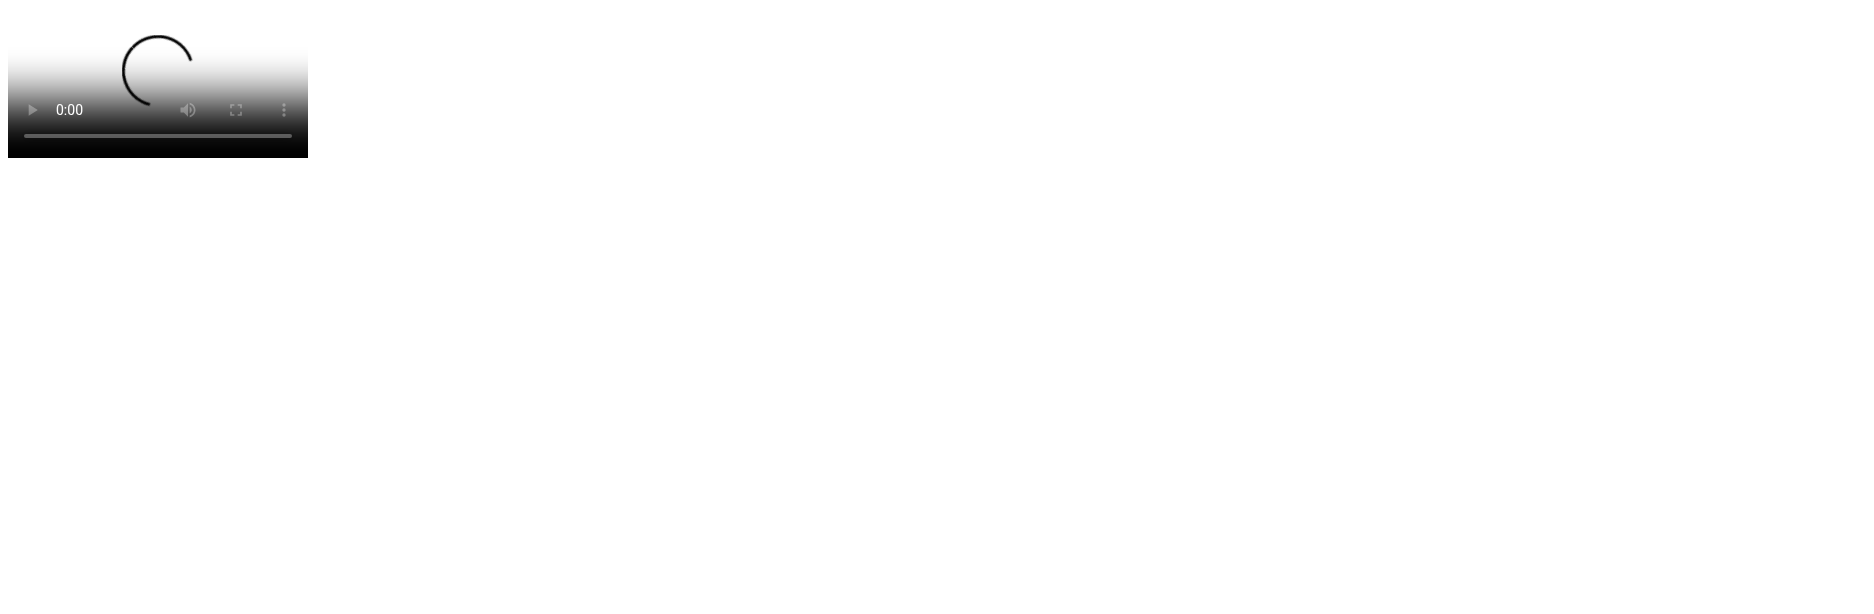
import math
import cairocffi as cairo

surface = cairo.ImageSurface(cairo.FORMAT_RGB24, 1874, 614)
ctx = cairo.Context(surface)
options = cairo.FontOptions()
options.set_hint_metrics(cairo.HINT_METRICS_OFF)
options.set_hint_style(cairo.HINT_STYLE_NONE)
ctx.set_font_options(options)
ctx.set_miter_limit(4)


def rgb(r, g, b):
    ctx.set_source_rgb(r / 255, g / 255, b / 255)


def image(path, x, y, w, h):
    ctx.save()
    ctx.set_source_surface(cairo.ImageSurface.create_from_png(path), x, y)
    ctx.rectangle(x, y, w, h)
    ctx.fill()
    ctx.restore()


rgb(255, 255, 255)
ctx.paint()
image('image0.png', 8, 35, 300, 123)
surface.write_to_png('render.png')
